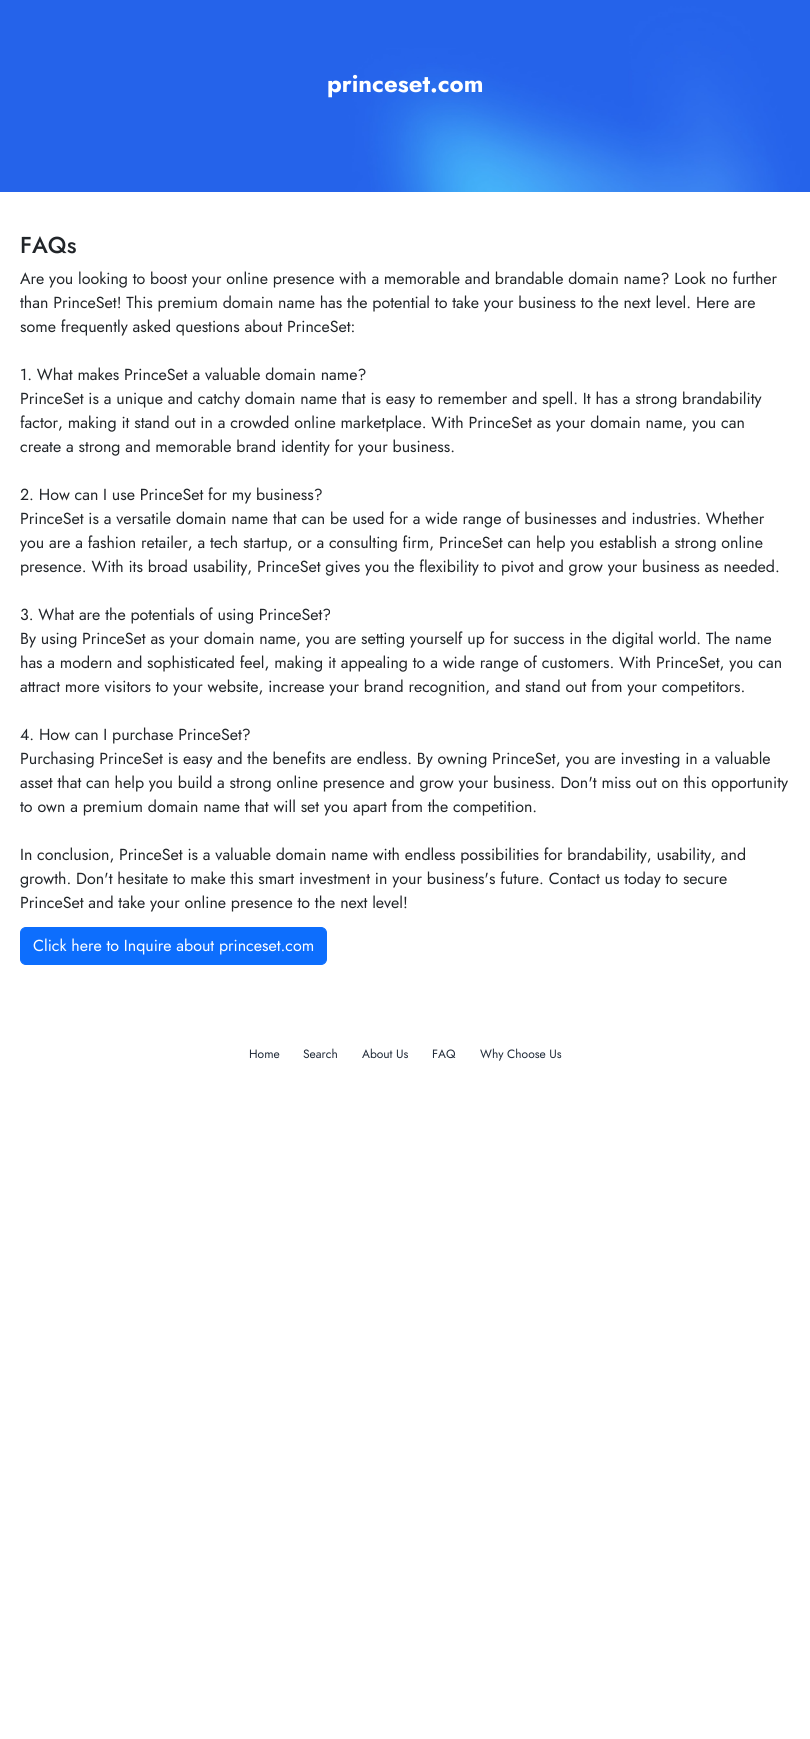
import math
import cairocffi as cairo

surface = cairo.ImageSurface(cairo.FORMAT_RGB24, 810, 1739)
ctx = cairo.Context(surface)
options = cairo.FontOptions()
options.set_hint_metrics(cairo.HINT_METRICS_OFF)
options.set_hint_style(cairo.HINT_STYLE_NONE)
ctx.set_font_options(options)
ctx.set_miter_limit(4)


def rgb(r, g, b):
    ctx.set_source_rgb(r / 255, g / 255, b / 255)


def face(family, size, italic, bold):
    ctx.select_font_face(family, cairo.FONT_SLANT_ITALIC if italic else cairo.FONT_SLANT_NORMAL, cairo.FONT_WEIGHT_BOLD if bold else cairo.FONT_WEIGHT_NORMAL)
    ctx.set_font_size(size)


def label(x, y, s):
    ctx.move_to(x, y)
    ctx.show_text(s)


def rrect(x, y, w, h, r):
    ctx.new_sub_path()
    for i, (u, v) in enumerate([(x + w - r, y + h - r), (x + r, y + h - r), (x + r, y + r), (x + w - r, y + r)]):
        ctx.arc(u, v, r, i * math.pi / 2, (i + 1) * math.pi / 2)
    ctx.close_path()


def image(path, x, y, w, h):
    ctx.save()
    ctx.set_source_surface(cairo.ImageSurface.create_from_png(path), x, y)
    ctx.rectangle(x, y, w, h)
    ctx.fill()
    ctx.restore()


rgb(255, 255, 255)
ctx.paint()
image('image0.png', 0, 0, 810, 192)
face('Jost', 24, 0, 1)
rgb(255, 255, 255)
label(327, 92, 'princeset.com')
face('Jost Medium', 23, 0, 0)
rgb(33, 37, 41)
label(20, 253, 'FAQs')
face('Jost', 16, 0, 0)
label(20, 284, 'Are you looking to boost your online presence with a memorable and brandable domain name? Look no further')
label(20, 308, 'than PrinceSet! This premium domain name has the potential to take your business to the next level. Here are')
label(20, 332, 'some frequently asked questions about PrinceSet:')
label(20, 380, '1. What makes PrinceSet a valuable domain name?')
label(20, 404, 'PrinceSet is a unique and catchy domain name that is easy to remember and spell. It has a strong brandability')
label(20, 428, 'factor, making it stand out in a crowded online marketplace. With PrinceSet as your domain name, you can')
label(20, 452, 'create a strong and memorable brand identity for your business.')
label(20, 500, '2. How can I use PrinceSet for my business?')
label(20, 524, 'PrinceSet is a versatile domain name that can be used for a wide range of businesses and industries. Whether')
label(20, 548, 'you are a fashion retailer, a tech startup, or a consulting firm, PrinceSet can help you establish a strong online')
label(20, 572, 'presence. With its broad usability, PrinceSet gives you the flexibility to pivot and grow your business as needed.')
label(20, 620, '3. What are the potentials of using PrinceSet?')
label(20, 644, 'By using PrinceSet as your domain name, you are setting yourself up for success in the digital world. The name')
label(20, 668, 'has a modern and sophisticated feel, making it appealing to a wide range of customers. With PrinceSet, you can')
label(20, 692, 'attract more visitors to your website, increase your brand recognition, and stand out from your competitors.')
label(20, 740, '4. How can I purchase PrinceSet?')
label(20, 764, 'Purchasing PrinceSet is easy and the benefits are endless. By owning PrinceSet, you are investing in a valuable')
label(20, 788, 'asset that can help you build a strong online presence and grow your business. Don\'t miss out on this opportunity')
label(20, 812, 'to own a premium domain name that will set you apart from the competition.')
label(20, 860, 'In conclusion, PrinceSet is a valuable domain name with endless possibilities for brandability, usability, and')
label(20, 884, 'growth. Don\'t hesitate to make this smart investment in your business\'s future. Contact us today to secure')
label(20, 908, 'PrinceSet and take your online presence to the next level!')
rgb(13, 110, 253)
rrect(20.5, 927.5, 306, 37, 5.5)
ctx.fill_preserve()
ctx.set_line_width(1)
ctx.stroke()
rgb(255, 255, 255)
label(33, 951, 'Click here to Inquire about princeset.com')
face('Jost', 12, 0, 0)
rgb(31, 41, 55)
label(249, 1058, 'Home')
label(303, 1058, 'Search')
label(362, 1058, 'About Us')
label(432, 1058, 'FAQ')
label(480, 1058, 'Why Choose Us')
surface.write_to_png('render.png')
